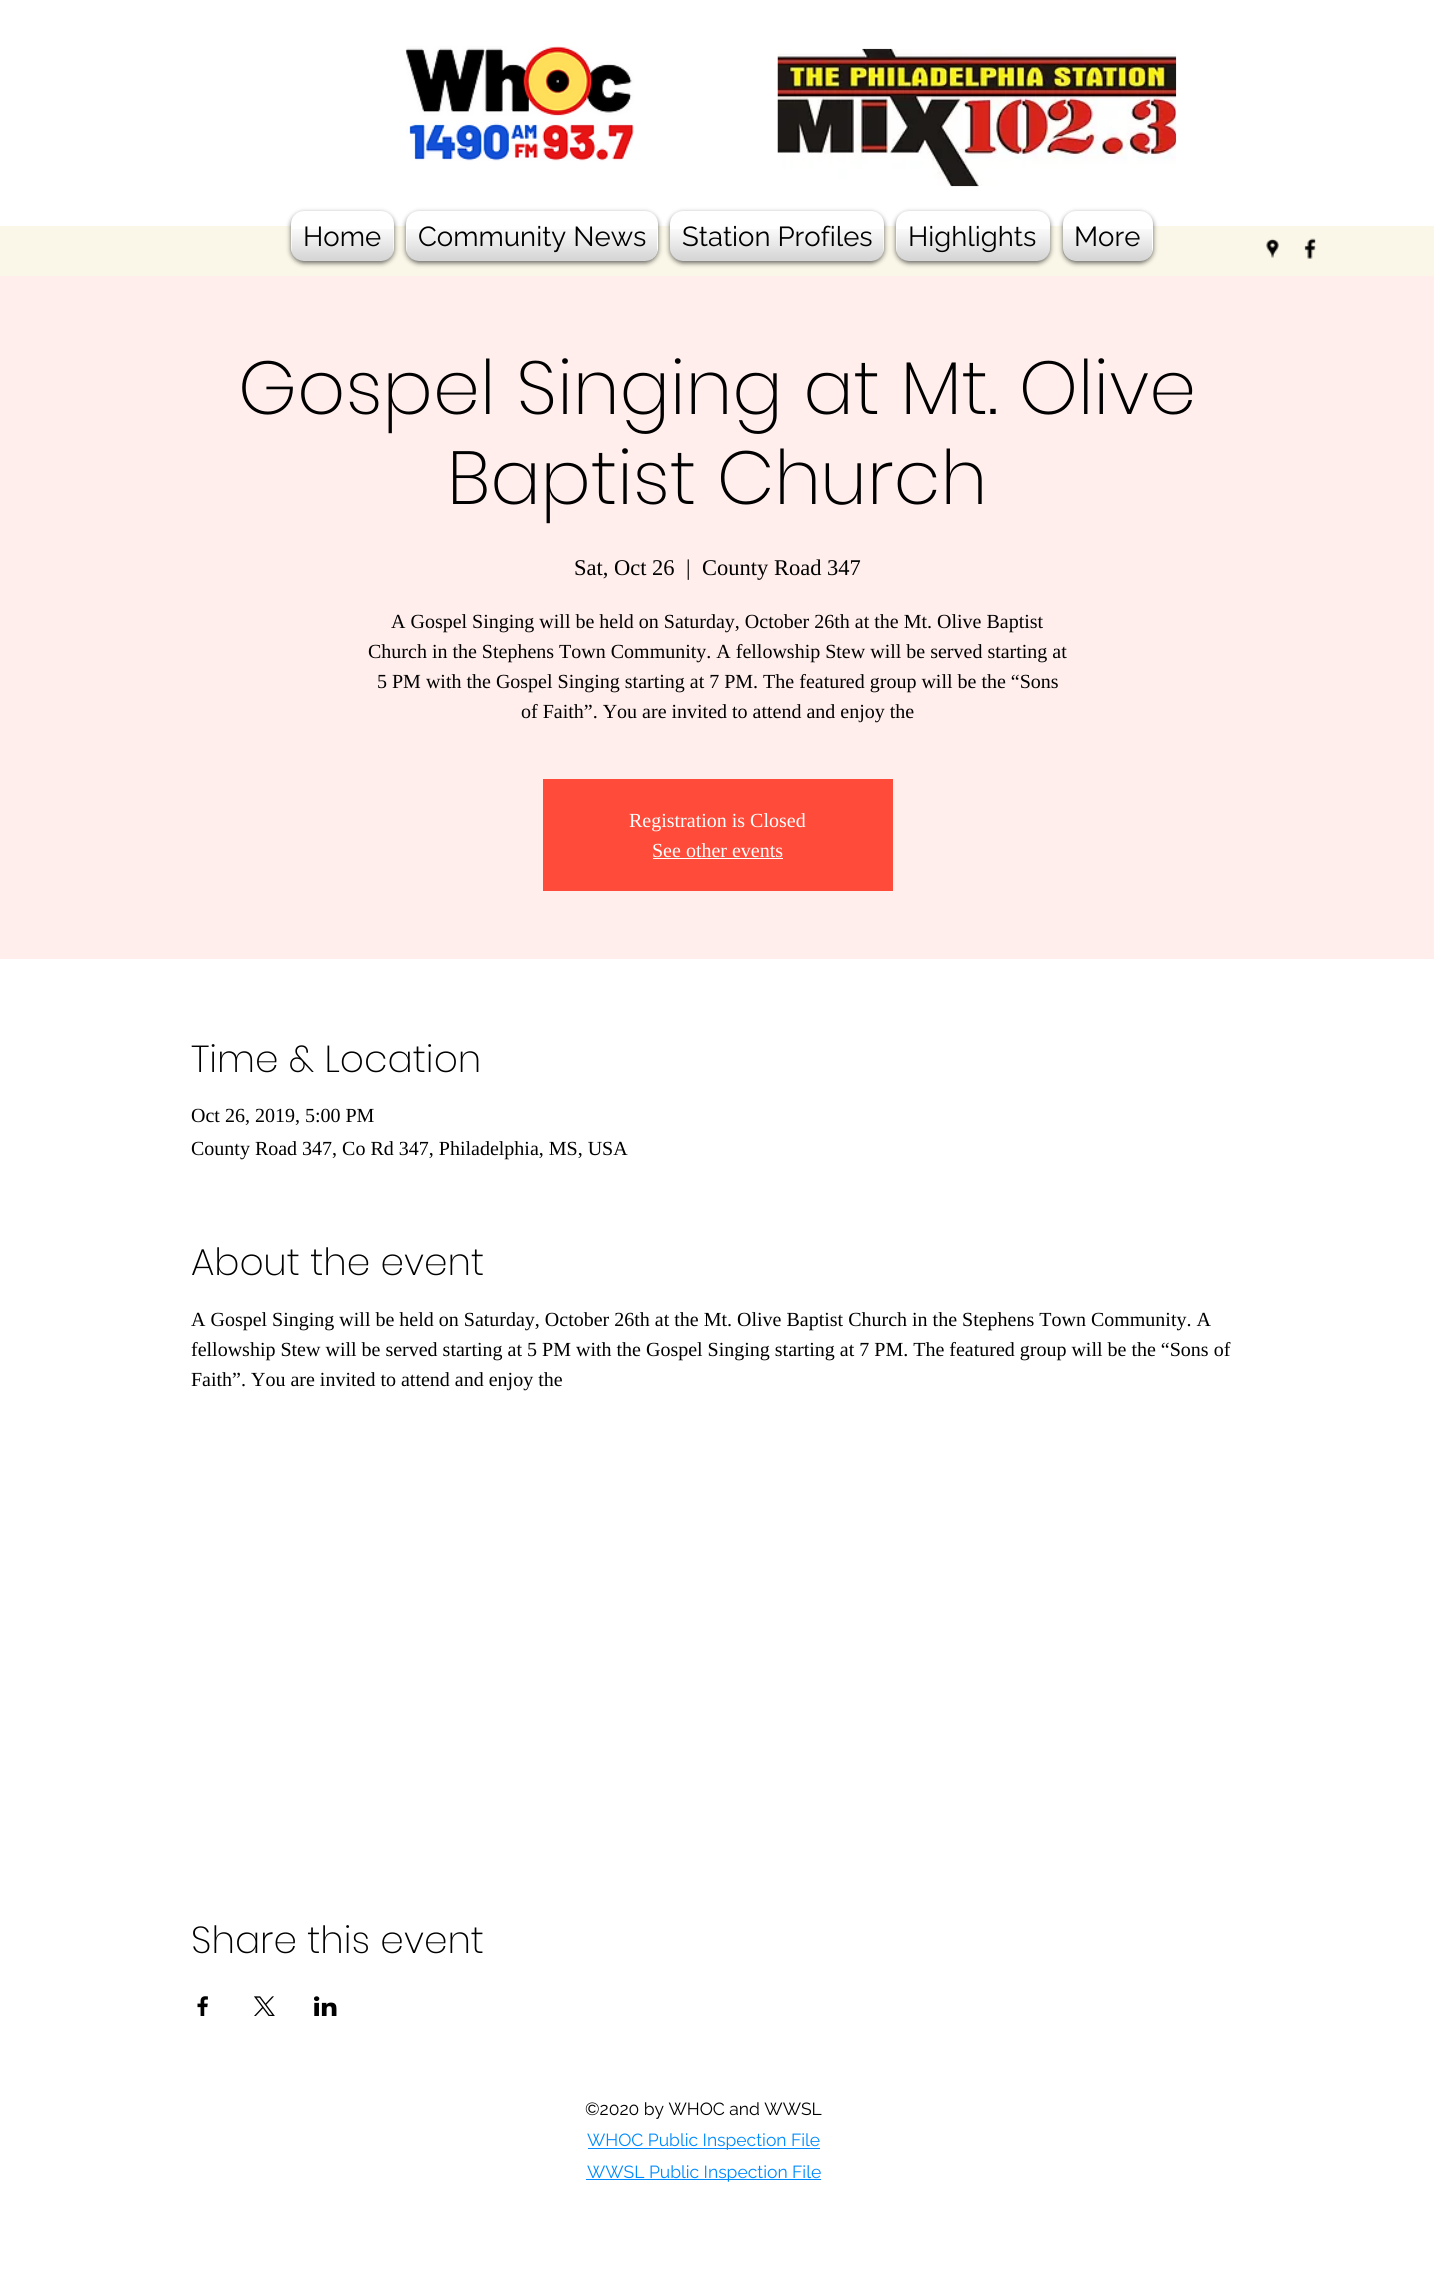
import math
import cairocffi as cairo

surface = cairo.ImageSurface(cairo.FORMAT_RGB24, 1434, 2285)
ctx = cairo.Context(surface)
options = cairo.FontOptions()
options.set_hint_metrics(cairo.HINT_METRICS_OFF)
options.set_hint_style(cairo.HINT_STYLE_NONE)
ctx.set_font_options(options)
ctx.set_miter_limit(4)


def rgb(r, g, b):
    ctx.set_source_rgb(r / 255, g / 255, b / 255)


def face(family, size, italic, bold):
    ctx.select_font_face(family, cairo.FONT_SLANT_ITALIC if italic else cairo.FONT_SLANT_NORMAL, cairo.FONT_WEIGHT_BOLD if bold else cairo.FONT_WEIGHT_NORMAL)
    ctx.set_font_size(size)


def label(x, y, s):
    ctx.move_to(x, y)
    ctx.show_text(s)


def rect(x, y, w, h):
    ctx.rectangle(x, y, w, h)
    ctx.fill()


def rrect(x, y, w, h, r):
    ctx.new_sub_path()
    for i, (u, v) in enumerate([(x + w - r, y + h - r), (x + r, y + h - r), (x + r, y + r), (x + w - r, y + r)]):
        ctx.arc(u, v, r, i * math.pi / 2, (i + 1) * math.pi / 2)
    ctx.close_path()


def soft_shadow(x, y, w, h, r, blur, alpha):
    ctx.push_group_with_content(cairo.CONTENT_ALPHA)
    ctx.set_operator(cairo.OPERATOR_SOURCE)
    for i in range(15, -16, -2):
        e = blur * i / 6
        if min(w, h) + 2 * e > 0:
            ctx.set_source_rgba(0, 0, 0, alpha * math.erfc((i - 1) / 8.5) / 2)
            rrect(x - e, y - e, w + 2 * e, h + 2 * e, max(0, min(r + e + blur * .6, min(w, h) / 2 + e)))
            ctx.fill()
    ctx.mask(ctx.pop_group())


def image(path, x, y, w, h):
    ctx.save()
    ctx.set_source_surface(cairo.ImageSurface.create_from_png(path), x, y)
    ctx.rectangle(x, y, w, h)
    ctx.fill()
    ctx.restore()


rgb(255, 255, 255)
ctx.paint()
image('image0.png', 405, 46, 229, 115)
image('image1.png', 777, 48, 400, 139)
rgb(250, 247, 232)
rect(0, 226, 1434, 50)
rgb(0, 0, 0)
soft_shadow(291, 213, 103, 50, 13, 2.5, 0.6)
rgb(255, 255, 255)
rrect(291, 211, 103, 50, 13)
ctx.fill()
image('image2.png', 291, 229, 103, 32)
face('Raleway', 27.5, 0, 0)
rgb(0, 0, 0)
label(303, 246, 'Home')
rgb(0, 0, 0)
soft_shadow(406, 213, 252, 50, 13, 2.5, 0.6)
rgb(255, 255, 255)
rrect(406, 211, 252, 50, 13)
ctx.fill()
image('image3.png', 406, 229, 251, 32)
rgb(0, 0, 0)
label(418, 246, 'Community News')
rgb(0, 0, 0)
soft_shadow(670, 213, 214, 50, 13, 2.5, 0.6)
rgb(255, 255, 255)
rrect(670, 211, 214, 50, 13)
ctx.fill()
image('image4.png', 670, 229, 214, 32)
rgb(0, 0, 0)
label(682, 246, 'Station Profiles')
rgb(0, 0, 0)
soft_shadow(896, 213, 154, 50, 13, 2.5, 0.6)
rgb(255, 255, 255)
rrect(896, 211, 154, 50, 13)
ctx.fill()
image('image5.png', 896, 229, 154, 32)
rgb(0, 0, 0)
label(908, 246, 'Highlights')
rgb(0, 0, 0)
soft_shadow(1063, 213, 90, 50, 13, 2.5, 0.6)
rgb(255, 255, 255)
rrect(1063, 211, 90, 50, 13)
ctx.fill()
image('image6.png', 1063, 229, 89, 32)
rgb(0, 0, 0)
label(1074, 246, 'More')
image('image7.png', 1266, 238, 13, 20)
image('image8.png', 1304, 238, 12, 21)
rgb(255, 238, 236)
rect(0, 276, 1434, 683)
face('Poppins ExtraLight', 75, 0, 0)
rgb(0, 0, 0)
label(238, 414, 'Gospel Singing at Mt. Olive')
label(447, 504, 'Baptist Church')
face('Liberation Serif', 22.5, 0, 0)
label(574, 575, 'Sat, Oct 26')
label(686, 575, '|')
label(702, 575, 'County Road 347')
face('Liberation Serif', 20, 0, 0)
label(391, 628, 'A Gospel Singing will be held on Saturday, October 26th at the Mt. Olive Baptist')
label(368, 658, 'Church in the Stephens Town Community. A fellowship Stew will be served starting at')
label(377, 688, '5 PM with the Gospel Singing starting at 7 PM. The featured group will be the “Sons')
label(521, 718, 'of Faith”. You are invited to attend and enjoy the')
rgb(255, 75, 57)
rect(543, 779, 350, 112)
rgb(255, 255, 255)
label(629, 827, 'Registration is Closed')
label(652, 857, 'See other events')
rect(653, 858, 130, 1)
face('Poppins ExtraLight', 37.5, 0, 0)
rgb(0, 0, 0)
label(191, 1072, 'Time & Location')
face('Liberation Serif', 20, 0, 0)
label(191, 1122, 'Oct 26, 2019, 5:00 PM')
label(191, 1155, 'County Road 347, Co Rd 347, Philadelphia, MS, USA')
face('Poppins ExtraLight', 37.5, 0, 0)
label(191, 1275, 'About the event')
face('Liberation Serif', 20, 0, 0)
label(191, 1326, 'A Gospel Singing will be held on Saturday, October 26th at the Mt. Olive Baptist Church in the Stephens Town Community. A')
label(191, 1356, 'fellowship Stew will be served starting at 5 PM with the Gospel Singing starting at 7 PM. The featured group will be the “Sons of')
label(191, 1386, 'Faith”. You are invited to attend and enjoy the')
face('Poppins ExtraLight', 37.5, 0, 0)
label(191, 1953, 'Share this event')
image('image9.png', 197, 1996, 11, 20)
image('image10.png', 254, 1996, 21, 20)
image('image11.png', 314, 1996, 23, 20)
face('Raleway', 17.5, 0, 0)
label(585, 2115, '©2020 by WHOC and WWSL')
rgb(0, 138, 252)
rect(588, 2148, 232, 1)
label(587, 2146, 'WHOC Public Inspection File')
rect(586, 2179, 235, 1)
label(587, 2178, 'WWSL Public Inspection File')
surface.write_to_png('render.png')
